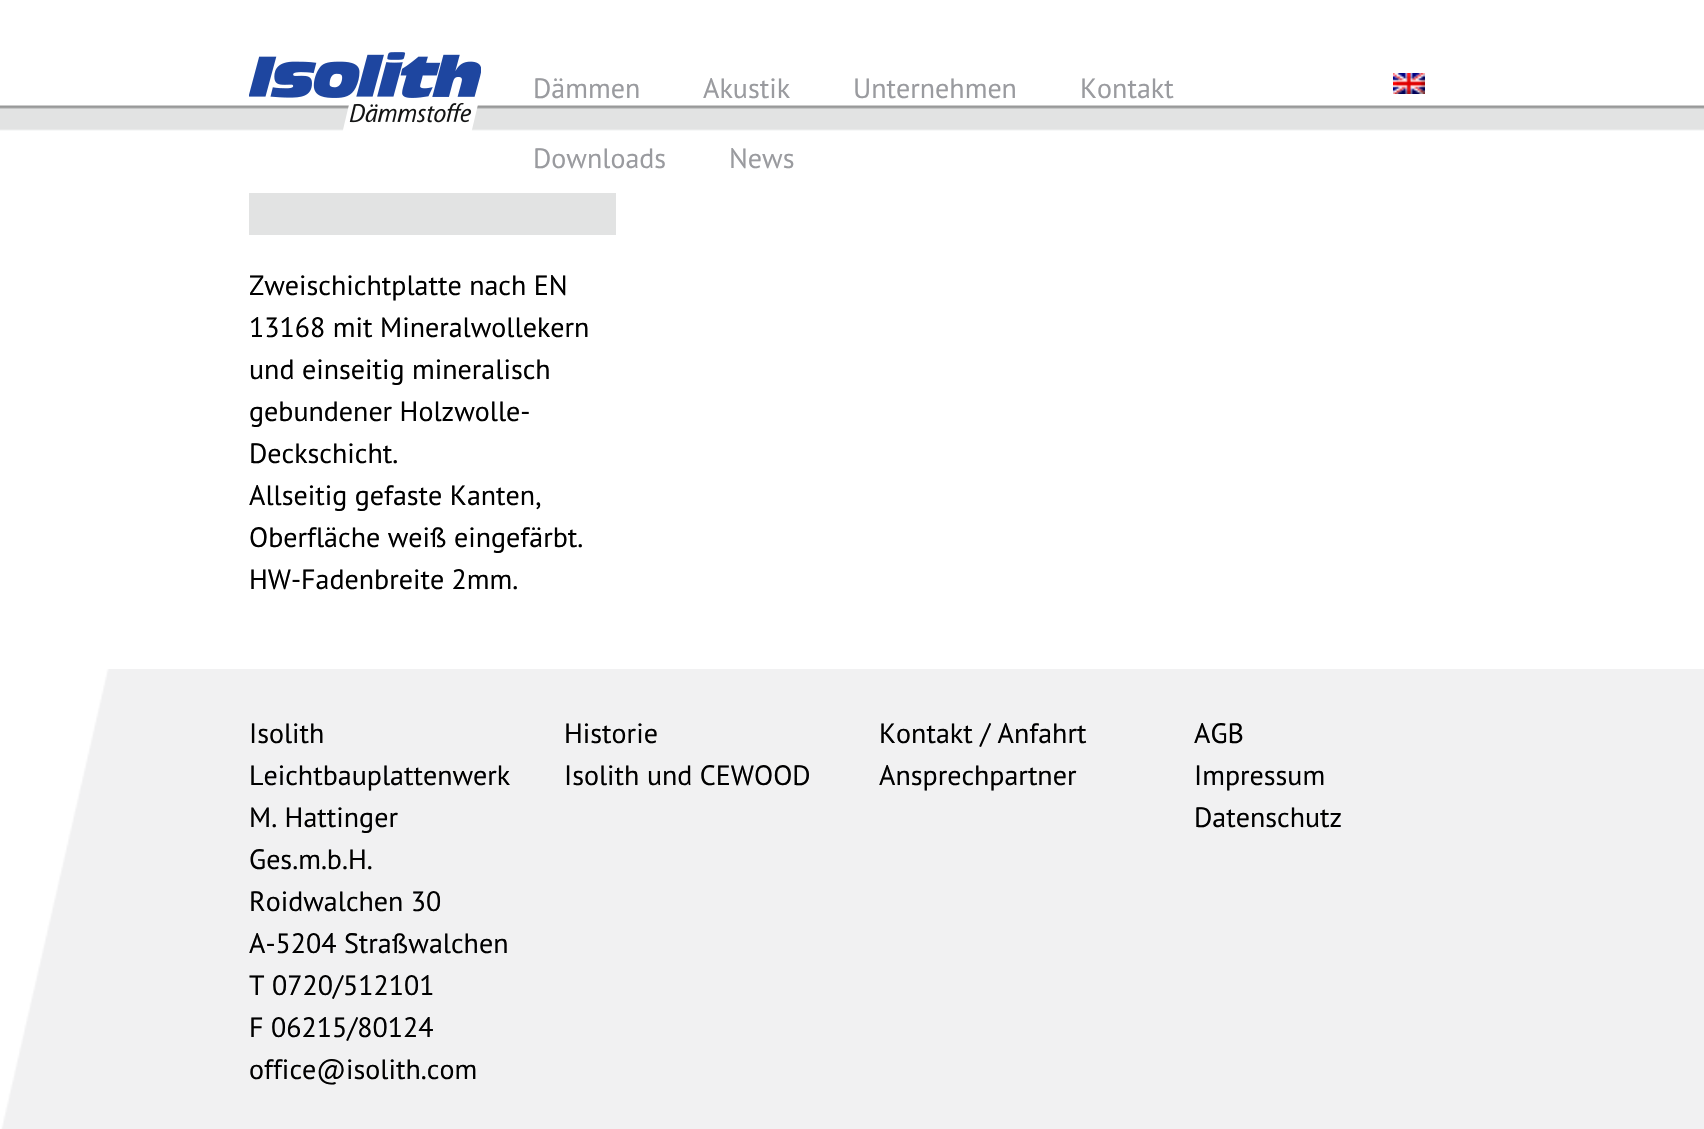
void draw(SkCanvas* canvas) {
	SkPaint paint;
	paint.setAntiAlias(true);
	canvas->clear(0xffffffff);
	canvas->drawImageRect(SkImages::DeferredFromEncodedData(SkData::MakeFromFileName("img1.png")), SkRect::MakeXYWH(0, 105, 1704, 26), SkSamplingOptions());
	canvas->drawImageRect(SkImages::DeferredFromEncodedData(SkData::MakeFromFileName("img2.png")), SkRect::MakeXYWH(249, 52, 232, 79), SkSamplingOptions());
	SkFont f1(fontMgr->matchFamilyStyle("PT Sans", SkFontStyle::Normal()), 28);
	f1.setSubpixel(true);
	paint.setColor(0xff9a9b9f);
	canvas->drawString("Dämmen", 533, 98, f1, paint);
	canvas->drawString("Akustik", 703, 98, f1, paint);
	canvas->drawString("Unternehmen", 853, 98, f1, paint);
	canvas->drawString("Kontakt", 1080, 98, f1, paint);
	canvas->drawString("Downloads", 533, 168, f1, paint);
	canvas->drawString("News", 729, 168, f1, paint);
	canvas->drawImageRect(SkImages::DeferredFromEncodedData(SkData::MakeFromFileName("img3.png")), SkRect::MakeXYWH(1393, 73, 32, 21), SkSamplingOptions());
	paint.setColor(0xffe2e3e3);
	canvas->drawRect(SkRect::MakeXYWH(249, 193, 367, 42), paint);
	paint.setColor(0xff000000);
	canvas->drawString("Zweischichtplatte nach EN", 249, 295, f1, paint);
	canvas->drawString("13168 mit Mineralwollekern", 249, 337, f1, paint);
	canvas->drawString("und einseitig mineralisch", 249, 379, f1, paint);
	canvas->drawString("gebundener Holzwolle-", 249, 421, f1, paint);
	canvas->drawString("Deckschicht.", 249, 463, f1, paint);
	canvas->drawString("Allseitig gefaste Kanten,", 249, 505, f1, paint);
	canvas->drawString("Oberfläche weiß eingefärbt.", 249, 547, f1, paint);
	canvas->drawString("HW-Fadenbreite 2 mm.", 249, 589, f1, paint);
	paint.setColor(0xfff1f1f2);
	canvas->drawRect(SkRect::MakeXYWH(0, 669, 1704, 460), paint);
	canvas->drawImageRect(SkImages::DeferredFromEncodedData(SkData::MakeFromFileName("img4.png")), SkRect::MakeXYWH(0, 669, 109, 460), SkSamplingOptions());
	paint.setColor(0xff000000);
	canvas->drawString("Isolith", 249, 743, f1, paint);
	canvas->drawString("Leichtbauplattenwerk", 249, 785, f1, paint);
	canvas->drawString("M. Hattinger", 249, 827, f1, paint);
	canvas->drawString("Ges.m.b.H.", 249, 869, f1, paint);
	canvas->drawString("Roidwalchen 30", 249, 911, f1, paint);
	canvas->drawString("A-5204 Straßwalchen", 249, 953, f1, paint);
	canvas->drawString("T 0720/512101", 249, 995, f1, paint);
	canvas->drawString("F 06215/80124", 249, 1037, f1, paint);
	canvas->drawString("office@isolith.com", 249, 1079, f1, paint);
	canvas->drawString("Historie", 564, 743, f1, paint);
	canvas->drawString("Isolith und CEWOOD", 564, 785, f1, paint);
	canvas->drawString("Kontakt / Anfahrt", 879, 743, f1, paint);
	canvas->drawString("Ansprechpartner", 879, 785, f1, paint);
	canvas->drawString("AGB", 1194, 743, f1, paint);
	canvas->drawString("Impressum", 1194, 785, f1, paint);
	canvas->drawString("Datenschutz", 1194, 827, f1, paint);
}
